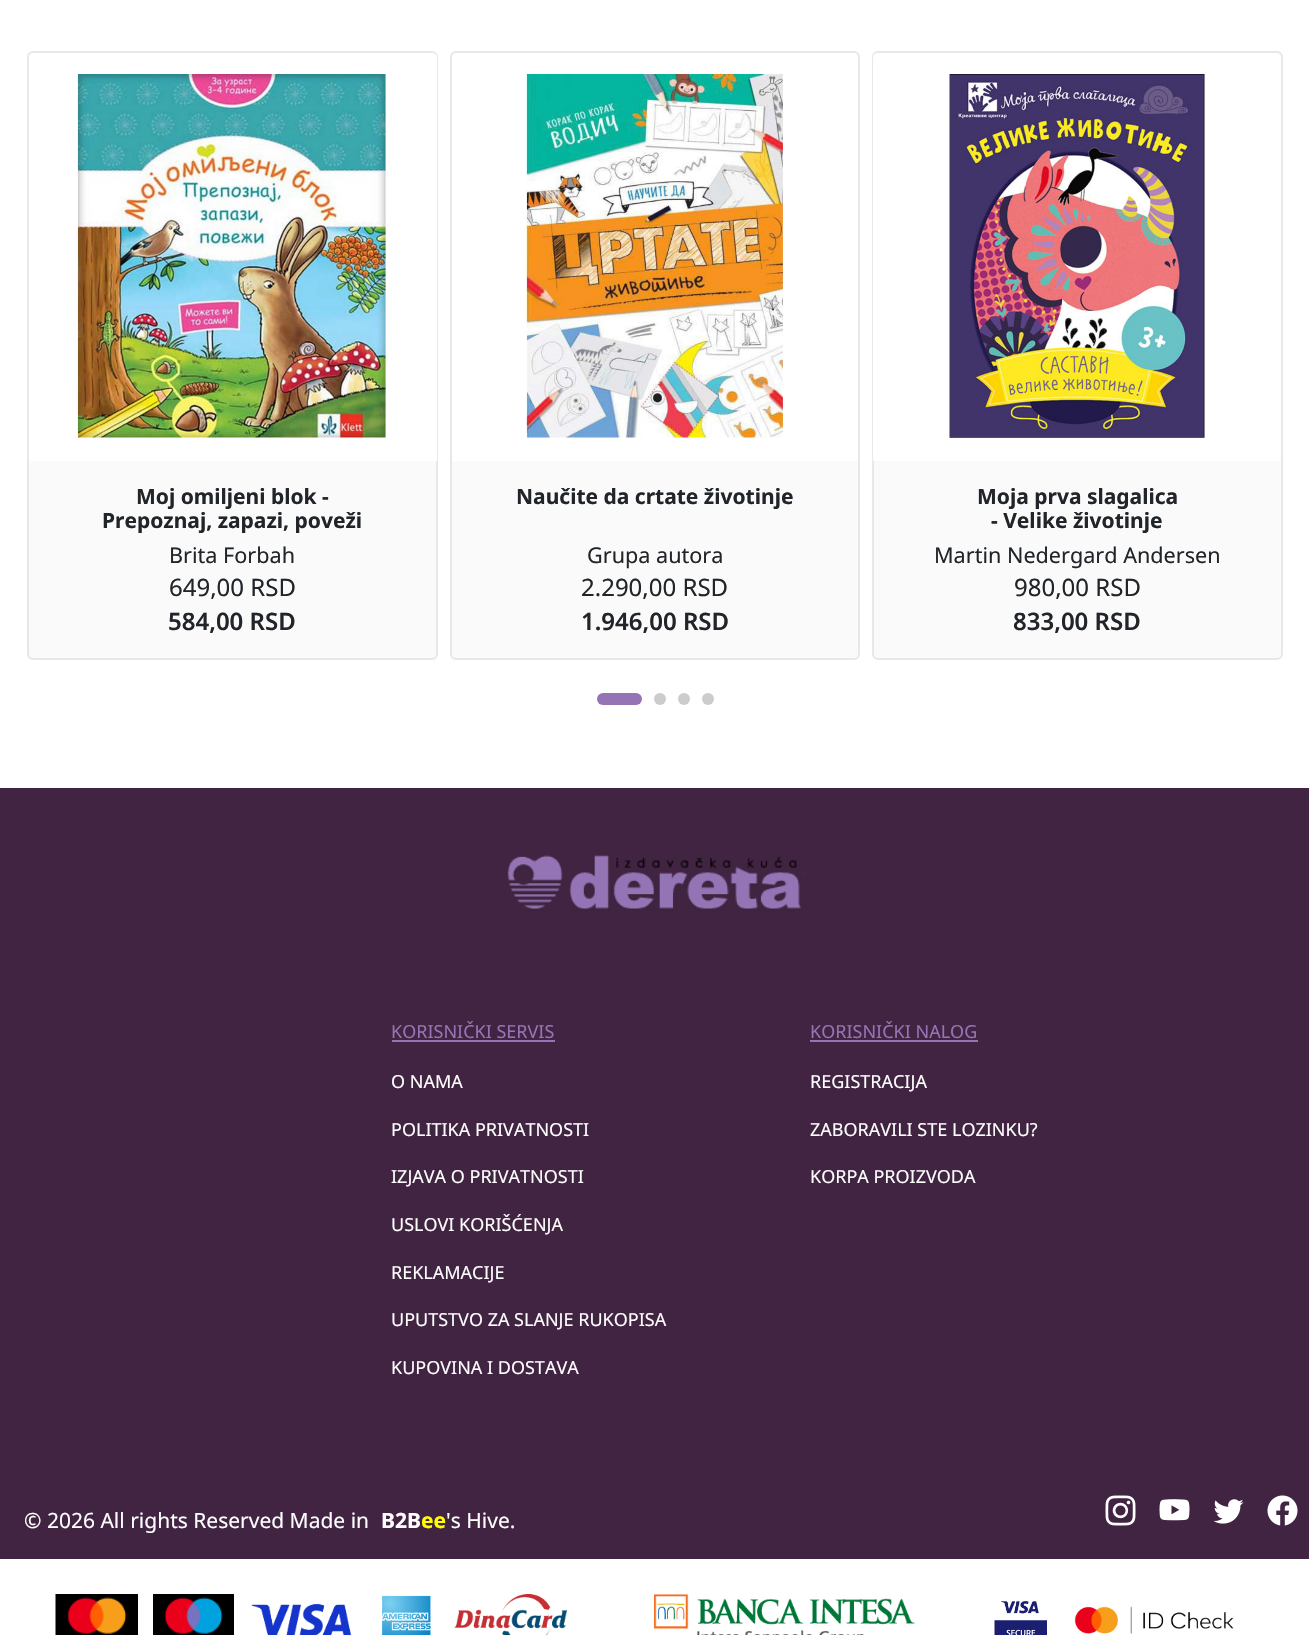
void draw(SkCanvas* canvas) {
	SkPaint paint;
	paint.setAntiAlias(true);
	auto svgPath = [&](const char* data, bool evenOdd = false) {
		SkPath result = *SkParsePath::FromSVGString(data);
		if (evenOdd) result.setFillType(SkPathFillType::kEvenOdd);
		return result;
	};
	canvas->clear(0xffffffff);
	paint.setColor(0xfffafafa);
	canvas->drawRoundRect(SkRect::MakeXYWH(28, 52, 409, 607), 5, 5, paint);
	paint.setStroke(true);
	paint.setStrokeWidth(2);
	paint.setColor(0xffe8e8e8);
	canvas->drawRoundRect(SkRect::MakeXYWH(28, 52, 409, 607), 5, 5, paint);
	paint.setStroke(false);
	paint.setColor(0xffffffff);
	canvas->drawPath(svgPath("M34 53H432C435 53 437 55 437 58V461H29V58C29 55 31 53 34 53Z"), paint);
	canvas->drawImageRect(SkImages::DeferredFromEncodedData(SkData::MakeFromFileName("img1.png")), SkRect::MakeXYWH(77, 74, 309, 364), SkSamplingOptions());
	SkFont f1(fontMgr->matchFamilyStyle("Noto Sans", SkFontStyle::Bold()), 21);
	f1.setSubpixel(true);
	paint.setColor(0xff212529);
	canvas->drawString("Moj omiljeni blok -", 136, 504, f1, paint);
	canvas->drawString("Prepoznaj, zapazi, poveži", 102, 528, f1, paint);
	SkFont f2(fontMgr->matchFamilyStyle("Noto Sans", SkFontStyle::Normal()), 21.6);
	f2.setSubpixel(true);
	canvas->drawString("Brita Forbah", 169, 563, f2, paint);
	SkFont f3(fontMgr->matchFamilyStyle("Noto Sans", SkFontStyle::Normal()), 24);
	f3.setSubpixel(true);
	canvas->drawString("649,00 RSD", 169, 596, f3, paint);
	SkFont f4(fontMgr->matchFamilyStyle("Noto Sans", SkFontStyle(600, SkFontStyle::kNormal_Width, SkFontStyle::kUpright_Slant)), 24);
	f4.setSubpixel(true);
	canvas->drawString("584,00 RSD", 168, 630, f4, paint);
	paint.setColor(0xfffafafa);
	canvas->drawRoundRect(SkRect::MakeXYWH(451, 52, 408, 607), 5, 5, paint);
	paint.setStroke(true);
	paint.setColor(0xffe8e8e8);
	canvas->drawRoundRect(SkRect::MakeXYWH(451, 52, 408, 607), 5, 5, paint);
	paint.setStroke(false);
	paint.setColor(0xffffffff);
	canvas->drawPath(svgPath("M457 53H853C856 53 858 55 858 58V461H452V58C452 55 454 53 457 53Z"), paint);
	canvas->drawImageRect(SkImages::DeferredFromEncodedData(SkData::MakeFromFileName("img2.png")), SkRect::MakeXYWH(526, 74, 257, 364), SkSamplingOptions());
	paint.setColor(0xff212529);
	canvas->drawString("Naučite da crtate životinje", 516, 504, f1, paint);
	canvas->drawString("Grupa autora", 587, 563, f2, paint);
	canvas->drawString("2.290,00 RSD", 581, 596, f3, paint);
	canvas->drawString("1.946,00 RSD", 581, 630, f4, paint);
	paint.setColor(0xfffafafa);
	canvas->drawRoundRect(SkRect::MakeXYWH(873, 52, 409, 607), 5, 5, paint);
	paint.setStroke(true);
	paint.setColor(0xffe8e8e8);
	canvas->drawRoundRect(SkRect::MakeXYWH(873, 52, 409, 607), 5, 5, paint);
	paint.setStroke(false);
	paint.setColor(0xffffffff);
	canvas->drawPath(svgPath("M878 53H1276C1279 53 1281 55 1281 58V461H873V58C873 55 875 53 878 53Z"), paint);
	canvas->drawImageRect(SkImages::DeferredFromEncodedData(SkData::MakeFromFileName("img3.png")), SkRect::MakeXYWH(949, 74, 256, 364), SkSamplingOptions());
	paint.setColor(0xff212529);
	canvas->drawString("Moja prva slagalica", 977, 504, f1, paint);
	canvas->drawString("- Velike životinje", 991, 528, f1, paint);
	canvas->drawString("Martin Nedergard Andersen", 934, 563, f2, paint);
	canvas->drawString("980,00 RSD", 1014, 596, f3, paint);
	canvas->drawString("833,00 RSD", 1013, 630, f4, paint);
	paint.setColor(0xff9474b4);
	canvas->drawRoundRect(SkRect::MakeXYWH(597, 693, 45, 12), 6, 6, paint);
	paint.setColor(0xffcccccc);
	canvas->drawCircle(660, 699, 6, paint);
	canvas->drawCircle(684, 699, 6, paint);
	canvas->drawCircle(708, 699, 6, paint);
	paint.setColor(0xff412342);
	canvas->drawRect(SkRect::MakeXYWH(0, 788, 1309, 771), paint);
	canvas->drawImageRect(SkImages::DeferredFromEncodedData(SkData::MakeFromFileName("img4.png")), SkRect::MakeXYWH(507, 855, 298, 56), SkSamplingOptions());
	SkFont f5(fontMgr->matchFamilyStyle("Noto Sans", SkFontStyle::Normal()), 18);
	f5.setSubpixel(true);
	paint.setColor(0xff9474b4);
	canvas->drawString("KORISNIČKI SERVIS", 391, 1038, f5, paint);
	canvas->drawRect(SkRect::MakeXYWH(392, 1040, 163, 2), paint);
	paint.setColor(0xffffffff);
	canvas->drawString("O NAMA", 391, 1088, f5, paint);
	canvas->drawString("POLITIKA PRIVATNOSTI", 391, 1136, f5, paint);
	canvas->drawString("IZJAVA O PRIVATNOSTI", 391, 1183, f5, paint);
	canvas->drawString("USLOVI KORIŠĆENJA", 391, 1231, f5, paint);
	canvas->drawString("REKLAMACIJE", 391, 1279, f5, paint);
	canvas->drawString("UPUTSTVO ZA SLANJE RUKOPISA", 391, 1326, f5, paint);
	canvas->drawString("KUPOVINA I DOSTAVA", 391, 1374, f5, paint);
	paint.setColor(0xff9474b4);
	canvas->drawString("KORISNIČKI NALOG", 810, 1038, f5, paint);
	canvas->drawRect(SkRect::MakeXYWH(810, 1040, 168, 2), paint);
	paint.setColor(0xffffffff);
	canvas->drawString("REGISTRACIJA", 810, 1088, f5, paint);
	canvas->drawString("ZABORAVILI STE LOZINKU?", 810, 1136, f5, paint);
	canvas->drawString("KORPA PROIZVODA", 810, 1183, f5, paint);
	SkFont f6(fontMgr->matchFamilyStyle("Noto Sans", SkFontStyle::Normal()), 21);
	f6.setSubpixel(true);
	canvas->drawString("© 2026 All rights Reserved Made in", 24, 1528, f6, paint);
	canvas->drawString("B2B", 381, 1528, f1, paint);
	paint.setColor(0xffffff00);
	canvas->drawString("ee", 421, 1528, f1, paint);
	paint.setColor(0xffffffff);
	canvas->drawString("'s Hive.", 446, 1528, f6, paint);
	canvas->drawImageRect(SkImages::DeferredFromEncodedData(SkData::MakeFromFileName("img5.png")), SkRect::MakeXYWH(1105, 1495, 31, 31), SkSamplingOptions());
	canvas->drawImageRect(SkImages::DeferredFromEncodedData(SkData::MakeFromFileName("img6.png")), SkRect::MakeXYWH(1159, 1499, 31, 22), SkSamplingOptions());
	canvas->drawImageRect(SkImages::DeferredFromEncodedData(SkData::MakeFromFileName("img7.png")), SkRect::MakeXYWH(1213, 1499, 31, 25), SkSamplingOptions());
	canvas->drawImageRect(SkImages::DeferredFromEncodedData(SkData::MakeFromFileName("img8.png")), SkRect::MakeXYWH(1267, 1495, 31, 31), SkSamplingOptions());
	canvas->drawImageRect(SkImages::DeferredFromEncodedData(SkData::MakeFromFileName("img9.png")), SkRect::MakeXYWH(55, 1594, 83, 41), SkSamplingOptions());
	canvas->drawImageRect(SkImages::DeferredFromEncodedData(SkData::MakeFromFileName("img10.png")), SkRect::MakeXYWH(153, 1594, 81, 41), SkSamplingOptions());
	canvas->drawImageRect(SkImages::DeferredFromEncodedData(SkData::MakeFromFileName("img11.png")), SkRect::MakeXYWH(251, 1603, 101, 32), SkSamplingOptions());
	canvas->drawImageRect(SkImages::DeferredFromEncodedData(SkData::MakeFromFileName("img12.png")), SkRect::MakeXYWH(382, 1595, 49, 40), SkSamplingOptions());
	canvas->drawImageRect(SkImages::DeferredFromEncodedData(SkData::MakeFromFileName("img13.png")), SkRect::MakeXYWH(454, 1594, 113, 41), SkSamplingOptions());
	canvas->drawImageRect(SkImages::DeferredFromEncodedData(SkData::MakeFromFileName("img14.png")), SkRect::MakeXYWH(654, 1594, 261, 41), SkSamplingOptions());
	canvas->drawImageRect(SkImages::DeferredFromEncodedData(SkData::MakeFromFileName("img15.png")), SkRect::MakeXYWH(994, 1601, 53, 34), SkSamplingOptions());
	canvas->drawImageRect(SkImages::DeferredFromEncodedData(SkData::MakeFromFileName("img16.png")), SkRect::MakeXYWH(1074, 1606, 160, 28), SkSamplingOptions());
}
